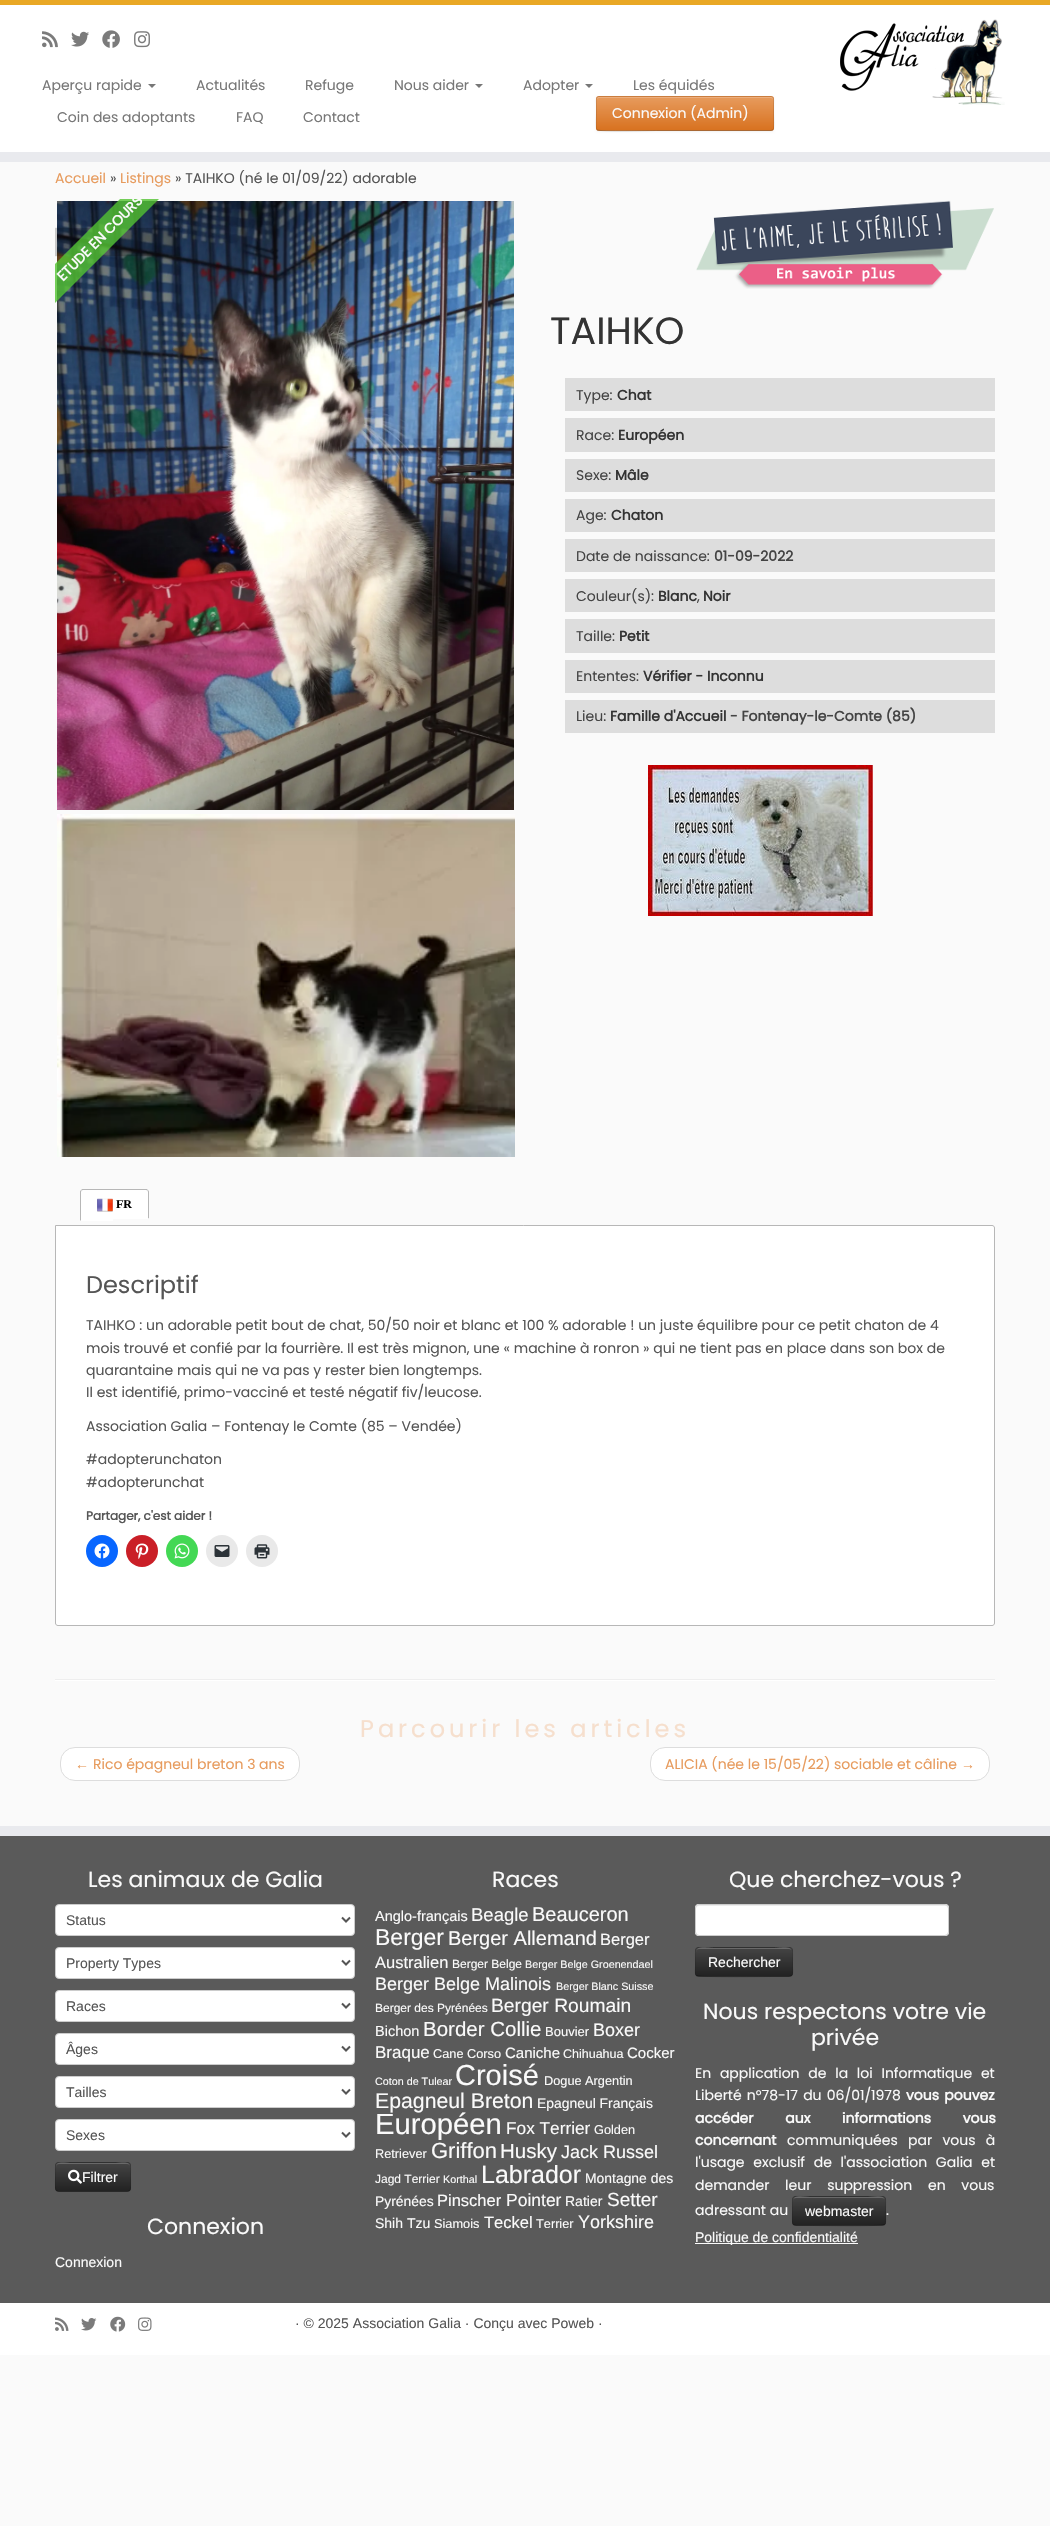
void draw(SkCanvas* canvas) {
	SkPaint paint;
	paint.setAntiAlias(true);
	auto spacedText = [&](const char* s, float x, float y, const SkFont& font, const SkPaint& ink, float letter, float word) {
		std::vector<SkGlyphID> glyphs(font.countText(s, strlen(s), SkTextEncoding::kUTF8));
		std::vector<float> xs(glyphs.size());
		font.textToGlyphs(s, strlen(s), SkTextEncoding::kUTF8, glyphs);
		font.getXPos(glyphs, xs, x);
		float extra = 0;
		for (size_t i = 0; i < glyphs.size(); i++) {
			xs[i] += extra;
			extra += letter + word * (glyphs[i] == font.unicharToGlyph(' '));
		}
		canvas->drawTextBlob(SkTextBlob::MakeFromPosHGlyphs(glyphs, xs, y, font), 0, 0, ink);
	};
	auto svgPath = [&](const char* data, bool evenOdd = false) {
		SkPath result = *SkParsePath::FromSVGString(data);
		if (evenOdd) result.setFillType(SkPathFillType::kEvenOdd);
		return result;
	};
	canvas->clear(0xfffafafa);
	paint.setColor(0xffffffff);
	canvas->drawRect(SkRect::MakeXYWH(0, 5, 1050, 147), paint);
	paint.setColor(0xffe9a825);
	canvas->drawRect(SkRect::MakeXYWH(0, 0, 1050, 5), paint);
	paint.setColor(0xffe9eaee);
	canvas->drawRect(SkRect::MakeXYWH(0, 152, 1050, 10), paint);
	canvas->drawImageRect(SkImages::DeferredFromEncodedData(SkData::MakeFromFileName("img1.png")), SkRect::MakeXYWH(42, 31, 16, 17), SkSamplingOptions());
	canvas->drawImageRect(SkImages::DeferredFromEncodedData(SkData::MakeFromFileName("img2.png")), SkRect::MakeXYWH(71, 31, 18, 16), SkSamplingOptions());
	canvas->drawImageRect(SkImages::DeferredFromEncodedData(SkData::MakeFromFileName("img3.png")), SkRect::MakeXYWH(102, 30, 18, 18), SkSamplingOptions());
	canvas->drawImageRect(SkImages::DeferredFromEncodedData(SkData::MakeFromFileName("img4.png")), SkRect::MakeXYWH(134, 31, 16, 17), SkSamplingOptions());
	SkFont f1(fontMgr->matchFamilyStyle("Poppins", SkFontStyle::Normal()), 14);
	f1.setSubpixel(true);
	paint.setColor(0xff777777);
	canvas->drawString("Aperçu rapide", 42, 90, f1, paint);
	canvas->drawPath(svgPath("M148 84H156L152 88Z"), paint);
	canvas->drawString("Actualités", 196, 90, f1, paint);
	canvas->drawString("Refuge", 305, 90, f1, paint);
	canvas->drawString("Nous aider", 394, 90, f1, paint);
	canvas->drawPath(svgPath("M475 84H483L479 88Z"), paint);
	canvas->drawString("Adopter", 523, 90, f1, paint);
	canvas->drawPath(svgPath("M585 84H593L589 88Z"), paint);
	canvas->drawString("Les équidés", 633, 90, f1, paint);
	canvas->drawString("Coin des adoptants", 57, 122, f1, paint);
	canvas->drawString("FAQ", 236, 122, f1, paint);
	canvas->drawString("Contact", 303, 122, f1, paint);
	paint.setColor(0x0d000000);
	paint.setMaskFilter(SkMaskFilter::MakeBlur(kNormal_SkBlurStyle, 1));
	canvas->drawRoundRect(SkRect::MakeXYWH(596, 97, 178, 35), 3, 3, paint);
	paint.setMaskFilter(nullptr);
	paint.setColor(0xffe18b45);
	canvas->drawRoundRect(SkRect::MakeXYWH(596, 96, 178, 35), 3, 3, paint);
	canvas->save();
	canvas->clipPath(svgPath("M599 96H771C772.5 96 774 97.5 774 99V128C774 129.5 772.5 131 771 131H599C597.5 131 596 129.5 596 128V99C596 97.5 597.5 96 599 96Z"), true);
	{
		const SkColor colors[] = {0xffe79b5d, 0xffd87220};
		const float stops[] = {0, 1};
		const SkPoint ends[] = {{685, 97}, {685, 130}};
		paint.setShader(SkGradientShader::MakeLinear(ends, colors, stops, 2, SkTileMode::kClamp));
		paint.setAlpha(255);
	}
	canvas->drawRect(SkRect::MakeXYWH(596, 97, 178, 33), paint);
	canvas->restore();
	paint.setShader(nullptr);
	paint.setColor(0xffecae7d);
	canvas->drawPath(svgPath("M599 98H771C772 98 773 99 773 100C773 99 773 97 771 97H598C597 98 597 99 597 100C597 99 598 98 599 98Z"), paint);
	paint.setStroke(true);
	paint.setStrokeWidth(1);
	paint.setColor(0x40000000);
	canvas->drawPath(svgPath("M773 130L771 130.5H656.5C652.5 130.5 599 131.5 597 130"), paint);
	paint.setColor(0x1a000000);
	canvas->drawPath(svgPath("M597 130C595.5 128 596.5 116.5 596.5 113.5V104C596.5 102 595.5 96.5 599 96.5H771C774.5 96.5 773.5 102 773.5 104V113.5C773.5 116.5 774.5 128 773 130"), paint);
	paint.setStroke(false);
	paint.setColor(0xfffafafa);
	canvas->drawString("Connexion (Admin)", 612, 118, f1, paint);
	canvas->drawImageRect(SkImages::DeferredFromEncodedData(SkData::MakeFromFileName("img5.png")), SkRect::MakeXYWH(840, 19, 165, 86), SkSamplingOptions());
	paint.setColor(0xffe79b5d);
	canvas->drawString("Accueil", 55, 183, f1, paint);
	paint.setColor(0xff555555);
	canvas->drawString("»", 110, 183, f1, paint);
	paint.setColor(0xffe79b5d);
	canvas->drawString("Listings", 120, 183, f1, paint);
	paint.setColor(0xff555555);
	canvas->drawString("» TAIHKO (né le 01/09/22) adorable", 175, 183, f1, paint);
	canvas->drawImageRect(SkImages::DeferredFromEncodedData(SkData::MakeFromFileName("img6.png")), SkRect::MakeXYWH(57, 201, 457, 609), SkSamplingOptions());
	canvas->save();
	canvas->clipRect(SkRect::MakeXYWH(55, 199, 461, 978));
	canvas->clipPath(svgPath("M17 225H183V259H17ZM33.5 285L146.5 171.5L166.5 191.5L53.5 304.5Z", true), true);
	paint.setColor(0x33000000);
	paint.setMaskFilter(SkMaskFilter::MakeBlur(kNormal_SkBlurStyle, 0.5));
	canvas->drawRect(SkRect::MakeXYWH(20, 228, 160, 28), paint);
	paint.setMaskFilter(nullptr);
	canvas->restore();
	canvas->save();
	canvas->clipRect(SkRect::MakeXYWH(55, 199, 461, 978));
	paint.setColor(0xcc53c331);
	canvas->drawPath(svgPath("M34 285L147 172L166 192L53 305Z"), paint);
	SkFont f2(fontMgr->matchFamilyStyle("Poppins", SkFontStyle::Bold()), 14);
	f2.setSubpixel(true);
	paint.setColor(0xfffafafa);
	canvas->save();
	canvas->rotate(-45, 63, 282);
	canvas->drawString("ETUDE EN COURS", 63, 282, f2, paint);
	canvas->restore();
	canvas->restore();
	canvas->drawImageRect(SkImages::DeferredFromEncodedData(SkData::MakeFromFileName("img7.png")), SkRect::MakeXYWH(57, 814, 458, 343), SkSamplingOptions());
	canvas->drawImageRect(SkImages::DeferredFromEncodedData(SkData::MakeFromFileName("img8.png")), SkRect::MakeXYWH(696, 200, 298, 89), SkSamplingOptions());
	SkFont f3(fontMgr->matchFamilyStyle("Poppins", SkFontStyle::Normal()), 38);
	f3.setSubpixel(true);
	paint.setColor(0xff333333);
	canvas->drawString("TAIHKO", 550, 344, f3, paint);
	paint.setColor(0xffdddddd);
	canvas->drawRect(SkRect::MakeXYWH(565, 378, 430, 33), paint);
	paint.setColor(0xff444444);
	canvas->drawString("Type:", 576, 400, f1, paint);
	paint.setColor(0xff333333);
	canvas->drawString("Chat", 617, 400, f2, paint);
	paint.setColor(0xffdddddd);
	canvas->drawRect(SkRect::MakeXYWH(565, 418, 430, 34), paint);
	paint.setColor(0xff444444);
	canvas->drawString("Race:", 576, 440, f1, paint);
	paint.setColor(0xff333333);
	canvas->drawString("Européen", 618, 440, f2, paint);
	paint.setColor(0xffdddddd);
	canvas->drawRect(SkRect::MakeXYWH(565, 459, 430, 33), paint);
	paint.setColor(0xff444444);
	canvas->drawString("Sexe:", 576, 480, f1, paint);
	paint.setColor(0xff333333);
	canvas->drawString("Mâle", 615, 480, f2, paint);
	paint.setColor(0xffdddddd);
	canvas->drawRect(SkRect::MakeXYWH(565, 499, 430, 33), paint);
	paint.setColor(0xff444444);
	canvas->drawString("Age:", 576, 520, f1, paint);
	paint.setColor(0xff333333);
	canvas->drawString("Chaton", 611, 520, f2, paint);
	paint.setColor(0xffdddddd);
	canvas->drawRect(SkRect::MakeXYWH(565, 539, 430, 33), paint);
	paint.setColor(0xff444444);
	canvas->drawString("Date de naissance:", 576, 561, f1, paint);
	canvas->drawString("01-09-2022", 714, 561, f2, paint);
	paint.setColor(0xffdddddd);
	canvas->drawRect(SkRect::MakeXYWH(565, 579, 430, 33), paint);
	paint.setColor(0xff444444);
	canvas->drawString("Couleur(s):", 576, 601, f1, paint);
	paint.setColor(0xff333333);
	canvas->drawString("Blanc", 658, 601, f2, paint);
	paint.setColor(0xff444444);
	canvas->drawString(",", 697, 601, f1, paint);
	paint.setColor(0xff333333);
	canvas->drawString("Noir", 703, 601, f2, paint);
	paint.setColor(0xffdddddd);
	canvas->drawRect(SkRect::MakeXYWH(565, 619, 430, 34), paint);
	paint.setColor(0xff444444);
	canvas->drawString("Taille:", 576, 641, f1, paint);
	paint.setColor(0xff333333);
	canvas->drawString("Petit", 619, 641, f2, paint);
	paint.setColor(0xffdddddd);
	canvas->drawRect(SkRect::MakeXYWH(565, 660, 430, 33), paint);
	paint.setColor(0xff444444);
	canvas->drawString("Ententes:", 576, 681, f1, paint);
	paint.setColor(0xff333333);
	canvas->drawString("Vérifier - Inconnu", 643, 681, f2, paint);
	paint.setColor(0xffdddddd);
	canvas->drawRect(SkRect::MakeXYWH(565, 700, 430, 33), paint);
	paint.setColor(0xff444444);
	canvas->drawString("Lieu:", 576, 721, f1, paint);
	paint.setColor(0xff333333);
	canvas->drawString("Famille d'Accueil", 610, 721, f2, paint);
	paint.setColor(0xff444444);
	canvas->drawString("- Fontenay-le-Comte (85)", 730, 721, f2, paint);
	canvas->drawImageRect(SkImages::DeferredFromEncodedData(SkData::MakeFromFileName("img9.png")), SkRect::MakeXYWH(648, 765, 225, 151), SkSamplingOptions());
	paint.setColor(0xffffffff);
	canvas->drawPath(svgPath("M83 1189H113V1221H80V1192C80 1190.5 81.5 1189 83 1189Z"), paint);
	canvas->drawImageRect(SkImages::DeferredFromEncodedData(SkData::MakeFromFileName("img10.png")), SkRect::MakeXYWH(97, 1198, 16, 14), SkSamplingOptions());
	canvas->drawPath(svgPath("M113 1189H146C147.5 1189 149 1190.5 149 1192V1219H113Z"), paint);
	SkFont f4(fontMgr->matchFamilyStyle("Liberation Serif", SkFontStyle::Bold()), 12);
	f4.setSubpixel(true);
	paint.setColor(0xff000000);
	canvas->drawString("FR", 116, 1208, f4, paint);
	paint.setColor(0xffb7b7b7);
	canvas->drawPath(svgPath("M83 1189C82 1189 81.5 1189.5 81 1190L81.5 1190.5L83 1190H113V1189Z"), paint);
	canvas->drawPath(svgPath("M80 1221L81 1220V1192L81.5 1190.5L81 1190C80.5 1190.5 80 1191 80 1192Z"), paint);
	canvas->drawPath(svgPath("M113 1189V1190H146L147.5 1190.5L148 1190C147.5 1189.5 147 1189 146 1189Z"), paint);
	canvas->drawPath(svgPath("M148 1218V1192L147.5 1190.5L148 1190C148.5 1190.5 149 1191 149 1192V1219Z"), paint);
	paint.setColor(0xffffffff);
	canvas->drawPath(svgPath("M149 1219L148 1218H113V1219Z"), paint);
	canvas->drawPath(svgPath("M55.5 1225.5H992C993.5 1225.5 994.5 1226.5 994.5 1228V1623C994.5 1624.5 993.5 1625.5 992 1625.5H58C56.5 1625.5 55.5 1624.5 55.5 1623Z"), paint);
	paint.setStroke(true);
	paint.setColor(0xffb7b7b7);
	canvas->drawPath(svgPath("M55.5 1225.5H992C993.5 1225.5 994.5 1226.5 994.5 1228V1623C994.5 1624.5 993.5 1625.5 992 1625.5H58C56.5 1625.5 55.5 1624.5 55.5 1623Z"), paint);
	SkFont f5(fontMgr->matchFamilyStyle("Poppins", SkFontStyle::Normal()), 24);
	f5.setSubpixel(true);
	paint.setStroke(false);
	paint.setColor(0xff555555);
	canvas->drawString("Descriptif", 86, 1293, f5, paint);
	canvas->drawString("TAIHKO : un adorable petit bout de chat, 50/50 noir et blanc et 100 % adorable ! un juste équilibre pour ce petit chaton de 4", 86, 1330, f1, paint);
	canvas->drawString("mois trouvé et confié par la fourrière. Il est très mignon, une « machine à ronron » qui ne tient pas en place dans son box de", 86, 1353, f1, paint);
	canvas->drawString("quarantaine mais qui ne va pas y rester bien longtemps.", 86, 1375, f1, paint);
	canvas->drawString("Il est identifié, primo-vacciné et testé négatif fiv/leucose.", 86, 1397, f1, paint);
	canvas->drawString("Association Galia – Fontenay le Comte (85 – Vendée)", 86, 1431, f1, paint);
	canvas->drawString("#adopterunchaton", 86, 1464, f1, paint);
	canvas->drawString("#adopterunchat", 86, 1487, f1, paint);
	SkFont f6(fontMgr->matchFamilyStyle("Poppins", SkFontStyle::Bold()), 12);
	f6.setSubpixel(true);
	canvas->drawString("Partager, c'est aider !", 86, 1520, f6, paint);
	paint.setColor(0xff0866ff);
	canvas->drawCircle(102, 1551, 16, paint);
	canvas->drawImageRect(SkImages::DeferredFromEncodedData(SkData::MakeFromFileName("img11.png")), SkRect::MakeXYWH(94, 1543, 16, 16), SkSamplingOptions());
	paint.setColor(0xffca1f27);
	canvas->drawCircle(142, 1551, 16, paint);
	canvas->drawImageRect(SkImages::DeferredFromEncodedData(SkData::MakeFromFileName("img12.png")), SkRect::MakeXYWH(135, 1543, 14, 16), SkSamplingOptions());
	paint.setColor(0xff43d854);
	canvas->drawCircle(182, 1551, 16, paint);
	canvas->drawImageRect(SkImages::DeferredFromEncodedData(SkData::MakeFromFileName("img13.png")), SkRect::MakeXYWH(174, 1543, 16, 16), SkSamplingOptions());
	paint.setColor(0xffe9e9e9);
	canvas->drawCircle(222, 1551, 16, paint);
	canvas->drawImageRect(SkImages::DeferredFromEncodedData(SkData::MakeFromFileName("img14.png")), SkRect::MakeXYWH(214, 1545, 16, 12), SkSamplingOptions());
	canvas->drawCircle(262, 1551, 16, paint);
	canvas->drawImageRect(SkImages::DeferredFromEncodedData(SkData::MakeFromFileName("img15.png")), SkRect::MakeXYWH(254, 1544, 16, 15), SkSamplingOptions());
	paint.setColor(0xffeeeeee);
	canvas->drawRect(SkRect::MakeXYWH(55, 1679, 940, 1), paint);
	paint.setColor(0xffffffff);
	canvas->drawRect(SkRect::MakeXYWH(55, 1680, 940, 1), paint);
	paint.setColor(0xfff6dfcd);
	spacedText("Parcourir les articles", 360, 1737, f5, paint, 4, 0);
	paint.setColor(0xffffffff);
	canvas->drawRoundRect(SkRect::MakeXYWH(60.5, 1747.5, 239, 33), 14.5, 14.5, paint);
	paint.setStroke(true);
	paint.setColor(0xffdddddd);
	canvas->drawRoundRect(SkRect::MakeXYWH(60.5, 1747.5, 239, 33), 14.5, 14.5, paint);
	SkFont f7(fontMgr->matchFamilyStyle("Liberation Serif", SkFontStyle::Normal()), 14);
	f7.setSubpixel(true);
	paint.setStroke(false);
	paint.setColor(0xffe79b5d);
	canvas->drawString("←", 75, 1769, f7, paint);
	canvas->drawString("Rico épagneul breton 3 ans", 93, 1769, f1, paint);
	paint.setColor(0xffffffff);
	canvas->drawRoundRect(SkRect::MakeXYWH(650.5, 1747.5, 339, 33), 14.5, 14.5, paint);
	paint.setStroke(true);
	paint.setColor(0xffdddddd);
	canvas->drawRoundRect(SkRect::MakeXYWH(650.5, 1747.5, 339, 33), 14.5, 14.5, paint);
	paint.setStroke(false);
	paint.setColor(0xffe79b5d);
	canvas->drawString("ALICIA (née le 15/05/22) sociable et câline", 665, 1769, f1, paint);
	canvas->drawString("→", 961, 1769, f7, paint);
	paint.setColor(0xff5a5a5a);
	canvas->drawRect(SkRect::MakeXYWH(0, 1836, 1050, 467), paint);
	paint.setColor(0xffe9eaee);
	canvas->drawRect(SkRect::MakeXYWH(0, 1826, 1050, 10), paint);
	SkFont f8(fontMgr->matchFamilyStyle("Poppins", SkFontStyle::Normal()), 22);
	f8.setSubpixel(true);
	paint.setColor(0xfffafafa);
	canvas->drawString("Les animaux de Galia", 88, 1887, f8, paint);
	paint.setColor(0xffffffff);
	canvas->drawRoundRect(SkRect::MakeXYWH(55.5, 1904.5, 299, 31), 3.5, 3.5, paint);
	paint.setStroke(true);
	paint.setColor(0xffcccccc);
	canvas->drawRoundRect(SkRect::MakeXYWH(55.5, 1904.5, 299, 31), 3.5, 3.5, paint);
	paint.setStrokeWidth(2);
	paint.setColor(0xff555555);
	canvas->drawPath(svgPath("M342 1917.5L346 1921.5L350 1917.5"), paint);
	SkFont f9(fontMgr->matchFamilyStyle("Liberation Sans", SkFontStyle::Normal()), 14);
	f9.setSubpixel(true);
	paint.setStroke(false);
	canvas->drawString("Status", 66, 1925, f9, paint);
	paint.setColor(0xffffffff);
	canvas->drawRoundRect(SkRect::MakeXYWH(55.5, 1947.5, 299, 31), 3.5, 3.5, paint);
	paint.setStroke(true);
	paint.setStrokeWidth(1);
	paint.setColor(0xffcccccc);
	canvas->drawRoundRect(SkRect::MakeXYWH(55.5, 1947.5, 299, 31), 3.5, 3.5, paint);
	paint.setStrokeWidth(2);
	paint.setColor(0xff555555);
	canvas->drawPath(svgPath("M342 1960.5L346 1964.5L350 1960.5"), paint);
	paint.setStroke(false);
	canvas->drawString("Property Types", 66, 1968, f9, paint);
	paint.setColor(0xffffffff);
	canvas->drawRoundRect(SkRect::MakeXYWH(55.5, 1990.5, 299, 31), 3.5, 3.5, paint);
	paint.setStroke(true);
	paint.setStrokeWidth(1);
	paint.setColor(0xffcccccc);
	canvas->drawRoundRect(SkRect::MakeXYWH(55.5, 1990.5, 299, 31), 3.5, 3.5, paint);
	paint.setStrokeWidth(2);
	paint.setColor(0xff555555);
	canvas->drawPath(svgPath("M342 2003.5L346 2007.5L350 2003.5"), paint);
	paint.setStroke(false);
	canvas->drawString("Races", 66, 2011, f9, paint);
	paint.setColor(0xffffffff);
	canvas->drawRoundRect(SkRect::MakeXYWH(55.5, 2033.5, 299, 31), 3.5, 3.5, paint);
	paint.setStroke(true);
	paint.setStrokeWidth(1);
	paint.setColor(0xffcccccc);
	canvas->drawRoundRect(SkRect::MakeXYWH(55.5, 2033.5, 299, 31), 3.5, 3.5, paint);
	paint.setStrokeWidth(2);
	paint.setColor(0xff555555);
	canvas->drawPath(svgPath("M342 2046.5L346 2050.5L350 2046.5"), paint);
	paint.setStroke(false);
	canvas->drawString("Âges", 66, 2054, f9, paint);
	paint.setColor(0xffffffff);
	canvas->drawRoundRect(SkRect::MakeXYWH(55.5, 2076.5, 299, 31), 3.5, 3.5, paint);
	paint.setStroke(true);
	paint.setStrokeWidth(1);
	paint.setColor(0xffcccccc);
	canvas->drawRoundRect(SkRect::MakeXYWH(55.5, 2076.5, 299, 31), 3.5, 3.5, paint);
	paint.setStrokeWidth(2);
	paint.setColor(0xff555555);
	canvas->drawPath(svgPath("M342 2089.5L346 2093.5L350 2089.5"), paint);
	paint.setStroke(false);
	canvas->drawString("Tailles", 66, 2097, f9, paint);
	paint.setColor(0xffffffff);
	canvas->drawRoundRect(SkRect::MakeXYWH(55.5, 2119.5, 299, 31), 3.5, 3.5, paint);
	paint.setStroke(true);
	paint.setStrokeWidth(1);
	paint.setColor(0xffcccccc);
	canvas->drawRoundRect(SkRect::MakeXYWH(55.5, 2119.5, 299, 31), 3.5, 3.5, paint);
	paint.setStrokeWidth(2);
	paint.setColor(0xff555555);
	canvas->drawPath(svgPath("M342 2132.5L346 2136.5L350 2132.5"), paint);
	paint.setStroke(false);
	canvas->drawString("Sexes", 66, 2140, f9, paint);
	paint.setColor(0xff363636);
	canvas->drawRoundRect(SkRect::MakeXYWH(55, 2162, 76, 30), 4, 4, paint);
	canvas->save();
	canvas->clipPath(svgPath("M59 2162H127C129 2162 131 2164 131 2166V2188C131 2190 129 2192 127 2192H59C57 2192 55 2190 55 2188V2166C55 2164 57 2162 59 2162Z"), true);
	{
		const SkColor colors[] = {0xff444444, 0xff222222};
		const float stops[] = {0, 1};
		const SkPoint ends[] = {{93, 2163}, {93, 2191}};
		paint.setShader(SkGradientShader::MakeLinear(ends, colors, stops, 2, SkTileMode::kClamp));
		paint.setAlpha(255);
	}
	canvas->drawRect(SkRect::MakeXYWH(55, 2163, 76, 28), paint);
	canvas->restore();
	paint.setShader(nullptr);
	paint.setColor(0x33ffffff);
	canvas->drawPath(svgPath("M59 2164H127C129 2164 130 2165 130 2167C130 2160 120 2163 116 2163H70C66 2163 56 2160 56 2167C56 2165 57 2164 59 2164Z"), paint);
	paint.setStroke(true);
	paint.setStrokeWidth(1);
	paint.setColor(0x40000000);
	canvas->drawPath(svgPath("M129.5 2190.5L127.5 2191.5H58.5L56.5 2190.5"), paint);
	paint.setColor(0x1a000000);
	canvas->drawPath(svgPath("M56.5 2190.5C54.5 2188.5 55.5 2180 55.5 2177C55.5 2160.5 53 2162.5 70.5 2162.5H115.5C133 2162.5 130.5 2160.5 130.5 2177C130.5 2180 131.5 2188.5 129.5 2190.5"), paint);
	canvas->drawImageRect(SkImages::DeferredFromEncodedData(SkData::MakeFromFileName("img16.png")), SkRect::MakeXYWH(68, 2169, 14, 15), SkSamplingOptions());
	paint.setStroke(false);
	paint.setColor(0xfffafafa);
	canvas->drawString("Filtrer", 82, 2182, f9, paint);
	canvas->drawString("Connexion", 147, 2234, f8, paint);
	canvas->drawString("Connexion", 55, 2267, f9, paint);
	canvas->drawString("Races", 492, 1887, f8, paint);
	SkFont f10(fontMgr->matchFamilyStyle("Liberation Sans", SkFontStyle::Normal()), 14.5);
	f10.setSubpixel(true);
	canvas->drawString("Anglo-français", 375, 1921, f10, paint);
	SkFont f11(fontMgr->matchFamilyStyle("Liberation Sans", SkFontStyle::Normal()), 18.5);
	f11.setSubpixel(true);
	canvas->drawString("Beagle", 471, 1921, f11, paint);
	SkFont f12(fontMgr->matchFamilyStyle("Liberation Sans", SkFontStyle::Normal()), 20);
	f12.setSubpixel(true);
	canvas->drawString("Beauceron", 532, 1921, f12, paint);
	SkFont f13(fontMgr->matchFamilyStyle("Liberation Sans", SkFontStyle::Normal()), 23);
	f13.setSubpixel(true);
	canvas->drawString("Berger", 375, 1945, f13, paint);
	canvas->drawString("Berger Allemand", 448, 1945, f12, paint);
	SkFont f14(fontMgr->matchFamilyStyle("Liberation Sans", SkFontStyle::Normal()), 16.5);
	f14.setSubpixel(true);
	canvas->drawString("Berger", 600, 1945, f14, paint);
	canvas->drawString("Australien", 375, 1968, f14, paint);
	SkFont f15(fontMgr->matchFamilyStyle("Liberation Sans", SkFontStyle::Normal()), 12);
	f15.setSubpixel(true);
	canvas->drawString("Berger Belge", 452, 1968, f15, paint);
	SkFont f16(fontMgr->matchFamilyStyle("Liberation Sans", SkFontStyle::Normal()), 10.75);
	f16.setSubpixel(true);
	canvas->drawString("Berger Belge Groenendael", 525, 1968, f16, paint);
	SkFont f17(fontMgr->matchFamilyStyle("Liberation Sans", SkFontStyle::Normal()), 18);
	f17.setSubpixel(true);
	canvas->drawString("Berger Belge Malinois", 375, 1990, f17, paint);
	canvas->drawString("Berger Blanc Suisse", 556, 1990, f16, paint);
	canvas->drawString("Berger des Pyrénées", 375, 2012, f15, paint);
	SkFont f18(fontMgr->matchFamilyStyle("Liberation Sans", SkFontStyle::Normal()), 19.25);
	f18.setSubpixel(true);
	canvas->drawString("Berger Roumain", 491, 2012, f18, paint);
	canvas->drawString("Bichon", 375, 2036, f10, paint);
	SkFont f19(fontMgr->matchFamilyStyle("Liberation Sans", SkFontStyle::Normal()), 20.5);
	f19.setSubpixel(true);
	canvas->drawString("Border Collie", 423, 2036, f19, paint);
	SkFont f20(fontMgr->matchFamilyStyle("Liberation Sans", SkFontStyle::Normal()), 13);
	f20.setSubpixel(true);
	canvas->drawString("Bouvier", 545, 2036, f20, paint);
	canvas->drawString("Boxer", 593, 2036, f17, paint);
	SkFont f21(fontMgr->matchFamilyStyle("Liberation Sans", SkFontStyle::Normal()), 17);
	f21.setSubpixel(true);
	canvas->drawString("Braque", 375, 2058, f21, paint);
	SkFont f22(fontMgr->matchFamilyStyle("Liberation Sans", SkFontStyle::Normal()), 12.75);
	f22.setSubpixel(true);
	canvas->drawString("Cane Corso", 433, 2058, f22, paint);
	SkFont f23(fontMgr->matchFamilyStyle("Liberation Sans", SkFontStyle::Normal()), 15);
	f23.setSubpixel(true);
	canvas->drawString("Caniche", 505, 2058, f23, paint);
	SkFont f24(fontMgr->matchFamilyStyle("Liberation Sans", SkFontStyle::Normal()), 12.5);
	f24.setSubpixel(true);
	canvas->drawString("Chihuahua", 563, 2058, f24, paint);
	canvas->drawString("Cocker", 627, 2058, f23, paint);
	canvas->drawString("Coton de Tulear", 375, 2085, f16, paint);
	SkFont f25(fontMgr->matchFamilyStyle("Liberation Sans", SkFontStyle::Normal()), 29);
	f25.setSubpixel(true);
	canvas->drawString("Croisé", 455, 2085, f25, paint);
	canvas->drawString("Dogue Argentin", 544, 2085, f22, paint);
	SkFont f26(fontMgr->matchFamilyStyle("Liberation Sans", SkFontStyle::Normal()), 21.25);
	f26.setSubpixel(true);
	canvas->drawString("Epagneul Breton", 375, 2108, f26, paint);
	SkFont f27(fontMgr->matchFamilyStyle("Liberation Sans", SkFontStyle::Normal()), 13.9);
	f27.setSubpixel(true);
	canvas->drawString("Epagneul Français", 537, 2108, f27, paint);
	SkFont f28(fontMgr->matchFamilyStyle("Liberation Sans", SkFontStyle::Normal()), 29.25);
	f28.setSubpixel(true);
	canvas->drawString("Européen", 375, 2134, f28, paint);
	SkFont f29(fontMgr->matchFamilyStyle("Liberation Sans", SkFontStyle::Normal()), 17.25);
	f29.setSubpixel(true);
	canvas->drawString("Fox Terrier", 506, 2134, f29, paint);
	canvas->drawString("Golden", 594, 2134, f22, paint);
	canvas->drawString("Retriever", 375, 2158, f22, paint);
	SkFont f30(fontMgr->matchFamilyStyle("Liberation Sans", SkFontStyle::Normal()), 22);
	f30.setSubpixel(true);
	canvas->drawString("Griffon", 431, 2158, f30, paint);
	canvas->drawString("Husky", 500, 2158, f19, paint);
	canvas->drawString("Jack Russel", 561, 2158, f17, paint);
	canvas->drawString("Jagd Terrier", 375, 2183, f15, paint);
	canvas->drawString("Korthal", 443, 2183, f16, paint);
	SkFont f31(fontMgr->matchFamilyStyle("Liberation Sans", SkFontStyle::Normal()), 25);
	f31.setSubpixel(true);
	canvas->drawString("Labrador", 481, 2183, f31, paint);
	canvas->drawString("Montagne des", 585, 2183, f27, paint);
	canvas->drawString("Pyrénées", 375, 2206, f27, paint);
	canvas->drawString("Pinscher", 437, 2206, f14, paint);
	SkFont f32(fontMgr->matchFamilyStyle("Liberation Sans", SkFontStyle::Normal()), 17.5);
	f32.setSubpixel(true);
	canvas->drawString("Pointer", 506, 2206, f32, paint);
	canvas->drawString("Ratier", 565, 2206, f9, paint);
	SkFont f33(fontMgr->matchFamilyStyle("Liberation Sans", SkFontStyle::Normal()), 19);
	f33.setSubpixel(true);
	canvas->drawString("Setter", 607, 2206, f33, paint);
	canvas->drawString("Shih Tzu", 375, 2228, f9, paint);
	canvas->drawString("Siamois", 434, 2228, f22, paint);
	canvas->drawString("Teckel", 484, 2228, f14, paint);
	canvas->drawString("Terrier", 536, 2228, f22, paint);
	canvas->drawString("Yorkshire", 578, 2228, f17, paint);
	canvas->drawString("Que cherchez-vous ?", 729, 1887, f8, paint);
	paint.setColor(0xffffffff);
	canvas->drawRoundRect(SkRect::MakeXYWH(695, 1904, 254, 32), 4, 4, paint);
	paint.setColor(0xffececec);
	canvas->drawPath(svgPath("M699 1906H946L948 1907V1909C948 1907 947 1905 945 1905H699C697 1905 696 1907 696 1909C696 1907 697 1906 699 1906Z"), paint);
	paint.setStroke(true);
	paint.setColor(0xffcccccc);
	canvas->drawRoundRect(SkRect::MakeXYWH(695.5, 1904.5, 253, 31), 3.5, 3.5, paint);
	paint.setStroke(false);
	paint.setColor(0xff363636);
	canvas->drawRoundRect(SkRect::MakeXYWH(695, 1947, 98, 30), 4, 4, paint);
	canvas->save();
	canvas->clipPath(svgPath("M699 1947H789C791 1947 793 1949 793 1951V1973C793 1975 791 1977 789 1977H699C697 1977 695 1975 695 1973V1951C695 1949 697 1947 699 1947Z"), true);
	{
		const SkColor colors[] = {0xff444444, 0xff222222};
		const float stops[] = {0, 1};
		const SkPoint ends[] = {{744, 1948}, {744, 1976}};
		paint.setShader(SkGradientShader::MakeLinear(ends, colors, stops, 2, SkTileMode::kClamp));
		paint.setAlpha(255);
	}
	canvas->drawRect(SkRect::MakeXYWH(695, 1948, 98, 28), paint);
	canvas->restore();
	paint.setShader(nullptr);
	paint.setColor(0x33ffffff);
	canvas->drawPath(svgPath("M699 1949H789C791 1949 792 1950 792 1952C792 1944 777 1948 774 1948H714C711 1948 696 1944 696 1952C696 1950 697 1949 699 1949Z"), paint);
	paint.setStroke(true);
	paint.setColor(0x40000000);
	canvas->drawPath(svgPath("M791.5 1975.5L789 1976.5H774C765.5 1976.5 699 1977.5 697 1975.5H696.5"), paint);
	paint.setColor(0x1a000000);
	canvas->drawPath(svgPath("M696.5 1975.5C694 1973 695.5 1968.5 695.5 1965.5C695.5 1944.5 692 1947.5 714 1947.5H774C796 1947.5 792.5 1944.5 792.5 1965.5C792.5 1968.5 794 1973 791.5 1975.5"), paint);
	paint.setStroke(false);
	paint.setColor(0xfffafafa);
	canvas->drawString("Rechercher", 708, 1967, f9, paint);
	canvas->drawString("Nous respectons votre vie", 703, 2019, f8, paint);
	canvas->drawString("privée", 811, 2045, f8, paint);
	spacedText("En application de la loi Informatique et", 695, 2078, f1, paint, 0, 5);
	spacedText("Liberté n°78-17 du 06/01/1978", 695, 2100, f1, paint, 0, 1.5);
	spacedText("vous pouvez", 906, 2100, f2, paint, 0, 1.5);
	spacedText("accéder aux informations vous", 695, 2123, f2, paint, 0, 28);
	canvas->drawString("concernant", 695, 2145, f2, paint);
	spacedText("communiquées par vous à", 787, 2145, f1, paint, 0, 6.5);
	spacedText("l'usage exclusif de l'association Galia et", 695, 2167, f1, paint, 0, 5);
	spacedText("demander leur suppression en vous", 695, 2190, f1, paint, 0, 12);
	canvas->drawString("adressant au", 695, 2215, f1, paint);
	paint.setColor(0xff363636);
	canvas->drawRoundRect(SkRect::MakeXYWH(792, 2196, 94, 30), 4, 4, paint);
	canvas->save();
	canvas->clipPath(svgPath("M796 2196H882C884 2196 886 2198 886 2200V2222C886 2224 884 2226 882 2226H796C794 2226 792 2224 792 2222V2200C792 2198 794 2196 796 2196Z"), true);
	{
		const SkColor colors[] = {0xff444444, 0xff222222};
		const float stops[] = {0, 1};
		const SkPoint ends[] = {{839, 2197}, {839, 2225}};
		paint.setShader(SkGradientShader::MakeLinear(ends, colors, stops, 2, SkTileMode::kClamp));
		paint.setAlpha(255);
	}
	canvas->drawRect(SkRect::MakeXYWH(792, 2197, 94, 28), paint);
	canvas->restore();
	paint.setShader(nullptr);
	paint.setColor(0x33ffffff);
	canvas->drawPath(svgPath("M796 2198H882C884 2198 885 2199 885 2201C885 2193 871 2197 868 2197H810C807 2197 793 2193 793 2201C793 2199 794 2198 796 2198Z"), paint);
	paint.setStroke(true);
	paint.setColor(0x40000000);
	canvas->drawPath(svgPath("M884.5 2224.5H884C882 2226.5 818.5 2225.5 810.5 2225.5H796L793.5 2224.5"), paint);
	paint.setColor(0x1a000000);
	canvas->drawPath(svgPath("M793.5 2224.5C791.5 2222.5 792.5 2214 792.5 2211C792.5 2193 790.5 2196.5 810.5 2196.5H867.5C889.5 2196.5 885.5 2193.5 885.5 2214.5C885.5 2217.5 887 2222 884.5 2224.5"), paint);
	paint.setStroke(false);
	paint.setColor(0xfffafafa);
	canvas->drawString("webmaster", 805, 2216, f9, paint);
	canvas->drawString(".", 886, 2215, f1, paint);
	canvas->drawRect(SkRect::MakeXYWH(695, 2243, 163, 1), paint);
	canvas->drawString("Politique de confidentialité", 695, 2242, f9, paint);
	paint.setColor(0xffffffff);
	canvas->drawRect(SkRect::MakeXYWH(0, 2303, 1050, 52), paint);
	canvas->drawImageRect(SkImages::DeferredFromEncodedData(SkData::MakeFromFileName("img17.png")), SkRect::MakeXYWH(55, 2317, 14, 14), SkSamplingOptions());
	canvas->drawImageRect(SkImages::DeferredFromEncodedData(SkData::MakeFromFileName("img18.png")), SkRect::MakeXYWH(81, 2318, 16, 13), SkSamplingOptions());
	canvas->drawImageRect(SkImages::DeferredFromEncodedData(SkData::MakeFromFileName("img19.png")), SkRect::MakeXYWH(110, 2316, 16, 16), SkSamplingOptions());
	canvas->drawImageRect(SkImages::DeferredFromEncodedData(SkData::MakeFromFileName("img20.png")), SkRect::MakeXYWH(138, 2317, 14, 14), SkSamplingOptions());
	paint.setColor(0xff555555);
	canvas->drawString("· © 2025 Association Galia · Conçu avec Poweb ·", 295, 2328, f9, paint);
}
